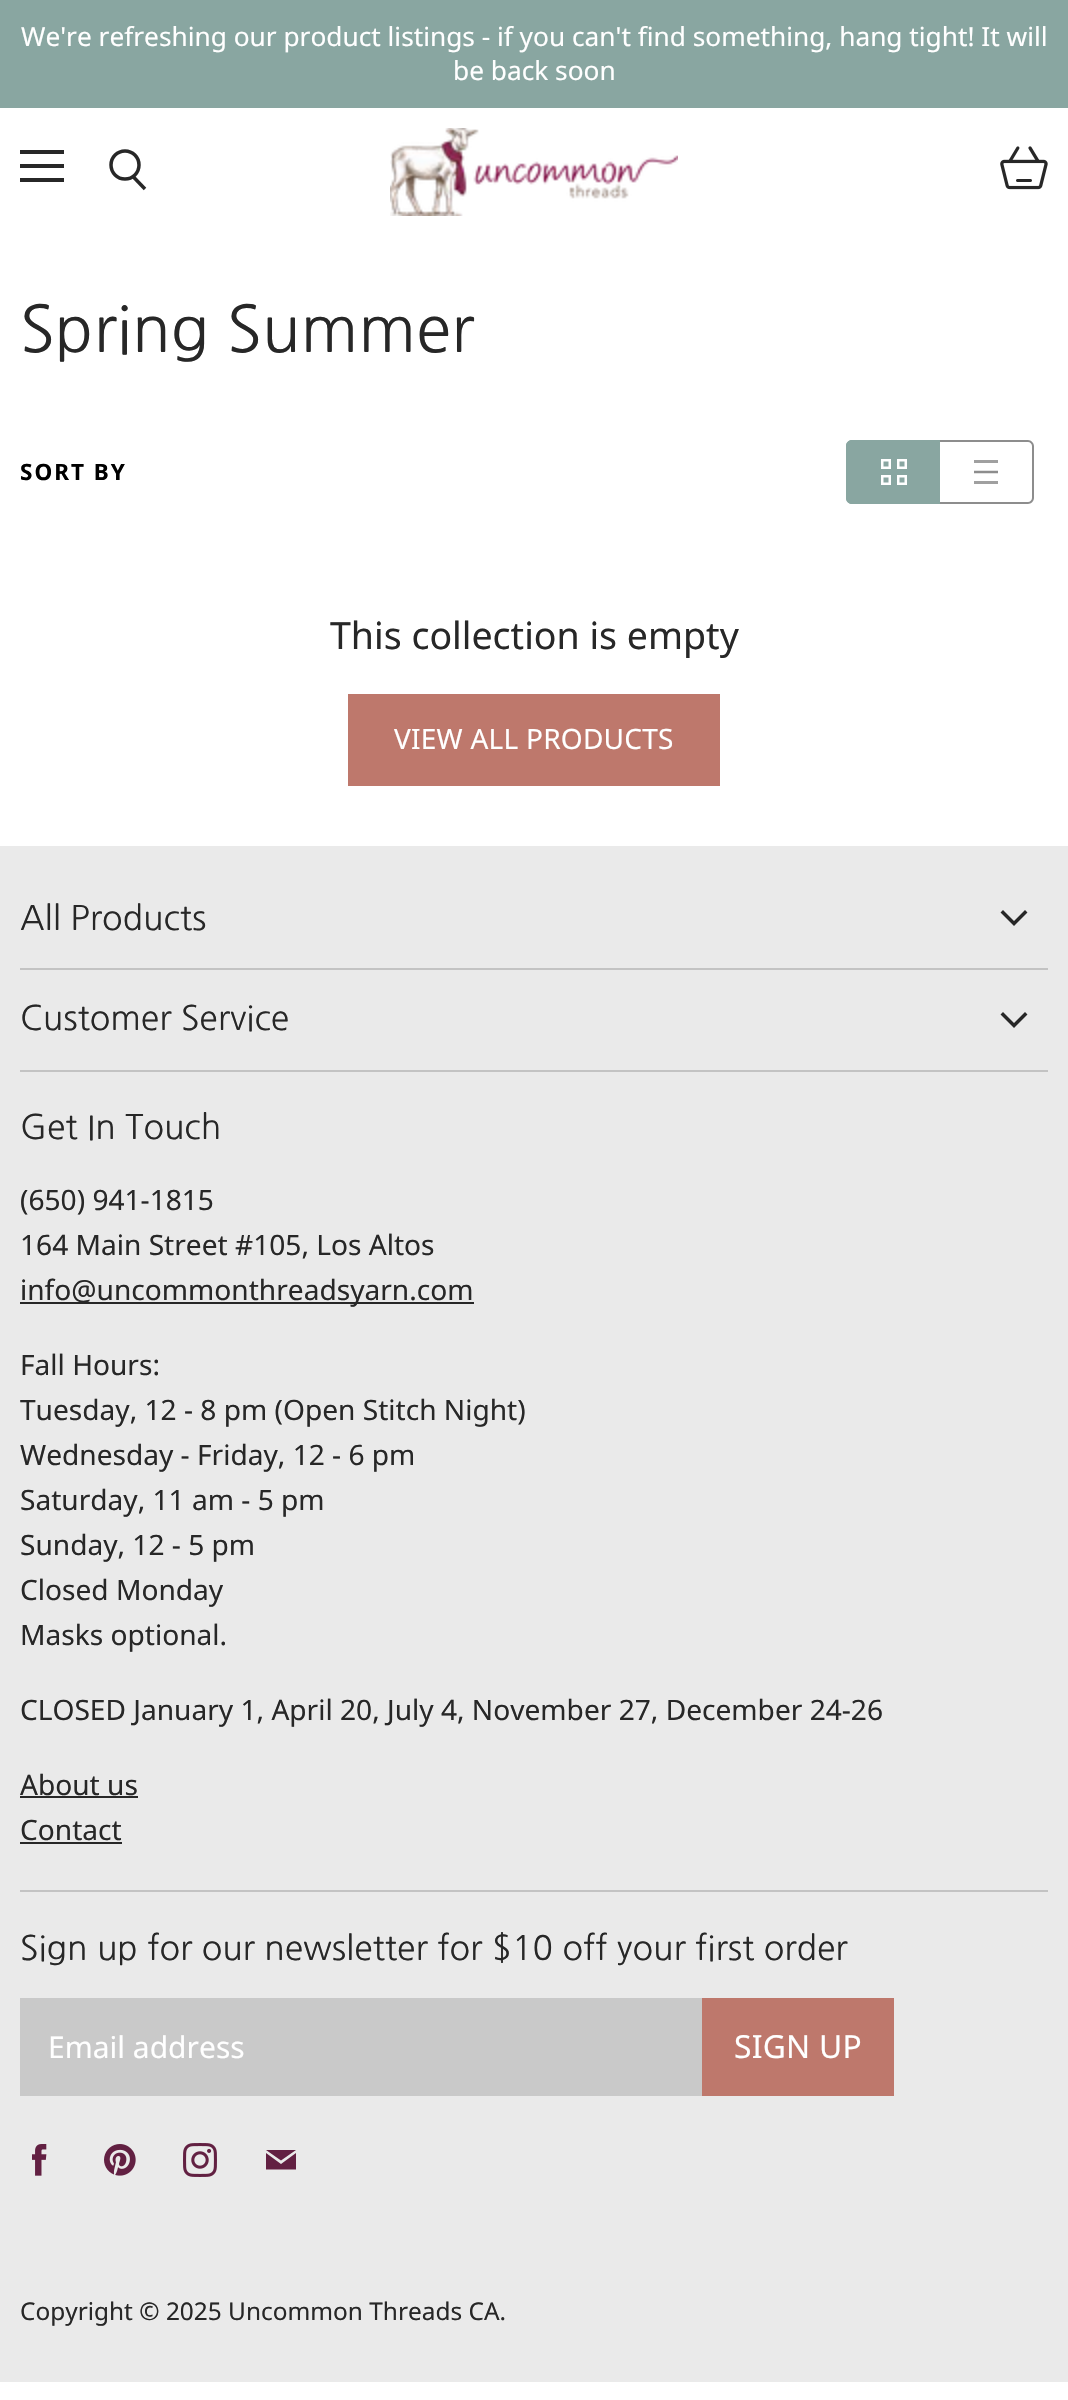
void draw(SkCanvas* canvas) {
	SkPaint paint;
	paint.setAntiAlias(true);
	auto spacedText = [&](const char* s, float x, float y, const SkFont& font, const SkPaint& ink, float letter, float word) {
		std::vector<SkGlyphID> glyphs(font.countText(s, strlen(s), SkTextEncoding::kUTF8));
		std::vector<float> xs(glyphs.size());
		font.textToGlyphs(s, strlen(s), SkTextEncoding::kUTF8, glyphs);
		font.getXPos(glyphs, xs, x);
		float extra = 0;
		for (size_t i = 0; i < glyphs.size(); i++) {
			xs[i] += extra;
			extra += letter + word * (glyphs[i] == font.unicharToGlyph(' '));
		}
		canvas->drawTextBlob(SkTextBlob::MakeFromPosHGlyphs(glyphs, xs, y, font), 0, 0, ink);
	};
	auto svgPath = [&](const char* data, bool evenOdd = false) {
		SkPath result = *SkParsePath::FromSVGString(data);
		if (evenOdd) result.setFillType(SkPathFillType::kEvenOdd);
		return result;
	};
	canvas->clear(0xffffffff);
	paint.setColor(0xff89a6a1);
	canvas->drawRect(SkRect::MakeXYWH(0, 0, 1068, 108), paint);
	SkFont f1(fontMgr->matchFamilyStyle("Noto Sans", SkFontStyle::Normal()), 26.25);
	f1.setSubpixel(true);
	paint.setColor(0xffffffff);
	canvas->drawString("We're refreshing our product listings - if you can't find something, hang tight! It will", 21, 46, f1, paint);
	canvas->drawString("be back soon", 453, 80, f1, paint);
	canvas->drawImageRect(SkImages::DeferredFromEncodedData(SkData::MakeFromFileName("img1.png")), SkRect::MakeXYWH(390, 128, 288, 88), SkSamplingOptions());
	paint.setColor(0xff272727);
	canvas->drawRect(SkRect::MakeXYWH(20, 150, 44, 4), paint);
	canvas->drawRect(SkRect::MakeXYWH(20, 164, 44, 4), paint);
	canvas->drawRect(SkRect::MakeXYWH(20, 178, 44, 4), paint);
	paint.setStroke(true);
	paint.setStrokeWidth(3.5);
	canvas->drawPath(svgPath("M145 189L133 176.5"), paint);
	canvas->drawCircle(125, 165, 14, paint);
	canvas->drawImageRect(SkImages::DeferredFromEncodedData(SkData::MakeFromFileName("img2.png")), SkRect::MakeXYWH(1000, 146, 48, 44), SkSamplingOptions());
	SkFont f2(fontMgr->matchFamilyStyle("NanumGothic", SkFontStyle::Normal()), 63.75);
	f2.setSubpixel(true);
	paint.setStroke(false);
	canvas->drawString("Spring Summer", 20, 352, f2, paint);
	SkFont f3(fontMgr->matchFamilyStyle("Noto Sans", SkFontStyle::Bold()), 22.5);
	f3.setSubpixel(true);
	paint.setColor(0xff000000);
	spacedText("SORT BY", 20, 480, f3, paint, 2, 0);
	paint.setColor(0xff89a6a1);
	canvas->drawPath(svgPath("M852 440H940V504H852C848.5 504 846 501.5 846 498V446C846 442.5 848.5 440 852 440Z"), paint);
	canvas->drawPath(svgPath("M852 440H940V504H852C849 504 846 501 846 498V446C846 443 849 440 852 440ZM852 442H940V502H852C850 502 848 500 848 498V446C848 444 850 442 852 442Z", true), paint);
	paint.setStroke(true);
	paint.setStrokeWidth(2.5);
	paint.setColor(0xffffffff);
	canvas->drawRect(SkRect::MakeXYWH(882.25, 460.25, 7.5, 7.5), paint);
	canvas->drawRect(SkRect::MakeXYWH(898.25, 460.25, 7.5, 7.5), paint);
	canvas->drawRect(SkRect::MakeXYWH(882.25, 476.25, 7.5, 7.5), paint);
	canvas->drawRect(SkRect::MakeXYWH(898.25, 476.25, 7.5, 7.5), paint);
	paint.setStroke(false);
	paint.setColor(0xff8d8d8d);
	canvas->drawPath(svgPath("M940 440H1028C1031 440 1034 443 1034 446V498C1034 501 1031 504 1028 504H940ZM940 442H1028C1030 442 1032 444 1032 446V498C1032 500 1030 502 1028 502H940Z", true), paint);
	paint.setColor(0xffa0a0a0);
	canvas->drawRect(SkRect::MakeXYWH(974, 460, 24, 3), paint);
	paint.setStroke(true);
	paint.setStrokeJoin(SkPaint::kRound_Join);
	paint.setColor(0xff8d8d8d);
	canvas->drawPath(svgPath("M974 472H998"), paint);
	paint.setStroke(false);
	paint.setColor(0xffa0a0a0);
	canvas->drawRect(SkRect::MakeXYWH(974, 481, 24, 3), paint);
	SkFont f4(fontMgr->matchFamilyStyle("Noto Sans", SkFontStyle::Normal()), 37.5);
	f4.setSubpixel(true);
	paint.setColor(0xff272727);
	canvas->drawString("This collection is empty", 330, 649, f4, paint);
	paint.setColor(0xffbe786c);
	canvas->drawRect(SkRect::MakeXYWH(348, 694, 372, 92), paint);
	SkFont f5(fontMgr->matchFamilyStyle("Noto Sans", SkFontStyle::Normal()), 28);
	f5.setSubpixel(true);
	paint.setColor(0xffffffff);
	spacedText("VIEW ALL PRODUCTS", 394, 749, f5, paint, 0.25, 0);
	paint.setColor(0xffeaeaea);
	canvas->drawRect(SkRect::MakeXYWH(0, 846, 1068, 1536), paint);
	paint.setColor(0xffc3c3c3);
	canvas->drawRect(SkRect::MakeXYWH(20, 968, 1028, 2), paint);
	SkFont f6(fontMgr->matchFamilyStyle("NanumGothic", SkFontStyle::Normal()), 33.75);
	f6.setSubpixel(true);
	paint.setColor(0xff272727);
	canvas->drawString("All Products", 20, 930, f6, paint);
	paint.setStroke(true);
	paint.setStrokeWidth(3.5);
	paint.setStrokeCap(SkPaint::kSquare_Cap);
	paint.setStrokeJoin(SkPaint::kMiter_Join);
	canvas->drawPath(svgPath("M1014 923.5L1025 912.5M1014 923.5L1003 912.5"), paint);
	paint.setStroke(false);
	paint.setColor(0xffc3c3c3);
	canvas->drawRect(SkRect::MakeXYWH(20, 1070, 1028, 2), paint);
	paint.setColor(0xff272727);
	canvas->drawString("Customer Service", 20, 1030, f6, paint);
	paint.setStroke(true);
	canvas->drawPath(svgPath("M1014 1025.5L1025 1014.5M1014 1025.5L1003 1014.5"), paint);
	paint.setStroke(false);
	paint.setColor(0xffc3c3c3);
	canvas->drawRect(SkRect::MakeXYWH(20, 1890, 1028, 2), paint);
	paint.setColor(0xff272727);
	canvas->drawString("Get In Touch", 20, 1139, f6, paint);
	SkFont f7(fontMgr->matchFamilyStyle("Noto Sans", SkFontStyle::Normal()), 28.1);
	f7.setSubpixel(true);
	canvas->drawString("(650) 941-1815", 20, 1210, f7, paint);
	canvas->drawString("164 Main Street #105, Los Altos", 20, 1255, f7, paint);
	canvas->drawRect(SkRect::MakeXYWH(20, 1302, 454, 2), paint);
	canvas->drawString("info@uncommonthreadsyarn.com", 20, 1300, f7, paint);
	canvas->drawString("Fall Hours:", 20, 1375, f7, paint);
	canvas->drawString("Tuesday, 12 - 8 pm (Open Stitch Night)", 20, 1420, f7, paint);
	canvas->drawString("Wednesday - Friday, 12 - 6 pm", 20, 1465, f7, paint);
	canvas->drawString("Saturday, 11 am - 5 pm", 20, 1510, f7, paint);
	canvas->drawString("Sunday, 12 - 5 pm", 20, 1555, f7, paint);
	canvas->drawString("Closed Monday", 20, 1600, f7, paint);
	canvas->drawString("Masks optional.", 20, 1645, f7, paint);
	canvas->drawString("CLOSED January 1, April 20, July 4, November 27, December 24-26", 20, 1720, f7, paint);
	canvas->drawString("About us", 20, 1795, f7, paint);
	canvas->drawRect(SkRect::MakeXYWH(20, 1796, 118, 2), paint);
	canvas->drawString("Contact", 20, 1840, f7, paint);
	canvas->drawRect(SkRect::MakeXYWH(20, 1842, 102, 2), paint);
	canvas->drawString("Sign up for our newsletter for $10 off your first order", 20, 1960, f6, paint);
	paint.setColor(0xffc9c9c9);
	canvas->drawRect(SkRect::MakeXYWH(20, 1998, 682, 98), paint);
	SkFont f8(fontMgr->matchFamilyStyle("Noto Sans", SkFontStyle::Normal()), 30);
	f8.setSubpixel(true);
	paint.setColor(0xffffffff);
	canvas->drawString("Email address", 48, 2058, f8, paint);
	paint.setColor(0xffbe786c);
	canvas->drawRect(SkRect::MakeXYWH(702, 1998, 192, 98), paint);
	SkFont f9(fontMgr->matchFamilyStyle("Noto Sans", SkFontStyle::Normal()), 31.75);
	f9.setSubpixel(true);
	paint.setColor(0xffffffff);
	spacedText("SIGN UP", 734, 2058, f9, paint, 0.25, 0);
	canvas->drawImageRect(SkImages::DeferredFromEncodedData(SkData::MakeFromFileName("img3.png")), SkRect::MakeXYWH(32, 2144, 15, 32), SkSamplingOptions());
	canvas->drawImageRect(SkImages::DeferredFromEncodedData(SkData::MakeFromFileName("img4.png")), SkRect::MakeXYWH(104, 2144, 32, 32), SkSamplingOptions());
	canvas->drawImageRect(SkImages::DeferredFromEncodedData(SkData::MakeFromFileName("img5.png")), SkRect::MakeXYWH(183, 2143, 34, 34), SkSamplingOptions());
	paint.setColor(0xff622042);
	canvas->drawPath(svgPath("M296 2150H266L281 2160.5ZM281 2164L266 2153V2169.5H296V2153Z", true), paint);
	SkFont f10(fontMgr->matchFamilyStyle("Noto Sans", SkFontStyle::Normal()), 24.4);
	f10.setSubpixel(true);
	paint.setColor(0xff272727);
	canvas->drawString("Copyright © 2025 Uncommon Threads CA.", 20, 2320, f10, paint);
}
